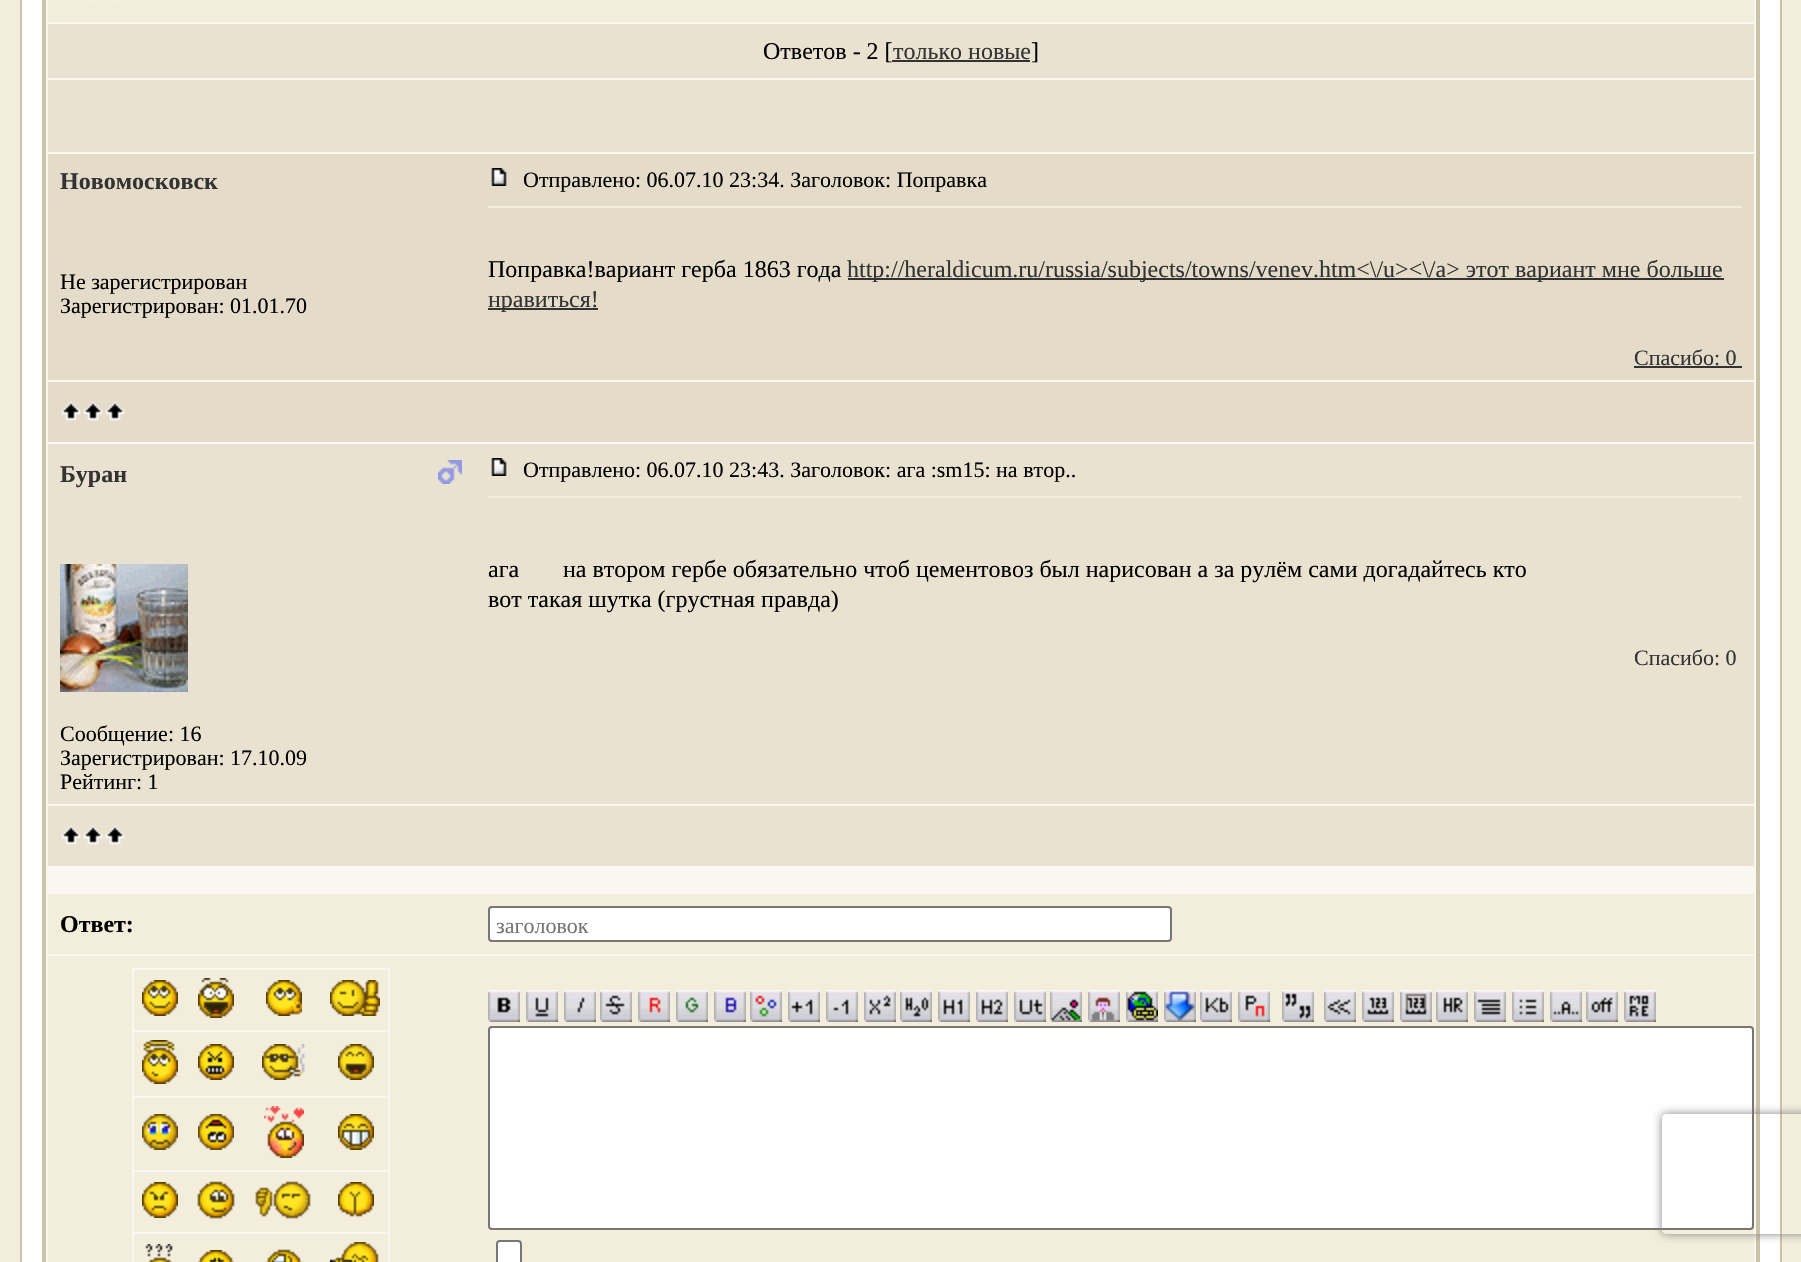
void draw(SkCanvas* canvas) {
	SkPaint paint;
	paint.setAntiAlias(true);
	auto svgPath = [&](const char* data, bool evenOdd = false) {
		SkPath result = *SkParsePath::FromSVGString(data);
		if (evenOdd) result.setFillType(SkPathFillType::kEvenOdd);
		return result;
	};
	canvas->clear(0xfff3eddb);
	paint.setColor(0xffccc2a8);
	canvas->drawRect(SkRect::MakeXYWH(20, 0, 1762, 1262), paint);
	paint.setColor(0xffffffff);
	canvas->drawRect(SkRect::MakeXYWH(22, 0, 1758, 1262), paint);
	paint.setColor(0xffccc2a8);
	canvas->drawRect(SkRect::MakeXYWH(42, 0, 1718, 1262), paint);
	paint.setColor(0xfffaf6f0);
	canvas->drawRect(SkRect::MakeXYWH(46, 0, 1710, 1262), paint);
	paint.setColor(0xfff3eddb);
	canvas->drawRect(SkRect::MakeXYWH(48, 0, 1706, 22), paint);
	canvas->drawImageRect(SkImages::DeferredFromEncodedData(SkData::MakeFromFileName("img1.png")), SkRect::MakeXYWH(66, 0, 54, 1), SkSamplingOptions());
	paint.setColor(0xffeae2d0);
	canvas->drawRect(SkRect::MakeXYWH(48, 24, 1706, 54), paint);
	SkFont f1(fontMgr->matchFamilyStyle("Liberation Serif", SkFontStyle::Normal()), 24);
	f1.setSubpixel(true);
	paint.setColor(0xff000000);
	canvas->drawString("Ответов - 2 [", 763, 59, f1, paint);
	paint.setColor(0xff333333);
	canvas->drawString("только новые", 893, 59, f1, paint);
	canvas->drawRect(SkRect::MakeXYWH(892, 60, 138, 2), paint);
	paint.setColor(0xff000000);
	canvas->drawString("]", 1031, 59, f1, paint);
	paint.setColor(0xffeae2d0);
	canvas->drawRect(SkRect::MakeXYWH(48, 80, 1706, 72), paint);
	paint.setColor(0xffe4dcc9);
	canvas->drawRect(SkRect::MakeXYWH(48, 154, 1706, 226), paint);
	SkFont f2(fontMgr->matchFamilyStyle("Liberation Serif", SkFontStyle::Bold()), 24);
	f2.setSubpixel(true);
	paint.setColor(0xff333333);
	canvas->drawString("Новомосковск", 60, 189, f2, paint);
	SkFont f3(fontMgr->matchFamilyStyle("Liberation Serif", SkFontStyle::Normal()), 22);
	f3.setSubpixel(true);
	paint.setColor(0xff000000);
	canvas->drawString("Не зарегистрирован", 60, 289, f3, paint);
	canvas->drawString("Зарегистрирован: 01.01.70", 60, 313, f3, paint);
	canvas->drawImageRect(SkImages::DeferredFromEncodedData(SkData::MakeFromFileName("img2.png")), SkRect::MakeXYWH(491, 168, 16, 18), SkSamplingOptions());
	canvas->drawString("Отправлено: 06.07.10 23:34. Заголовок: Поправка", 523, 187, f3, paint);
	paint.setColor(0xfff3eddb);
	canvas->drawRect(SkRect::MakeXYWH(488, 206, 1254, 2), paint);
	paint.setColor(0xff000000);
	canvas->drawString("Поправка!вариант герба 1863 года", 488, 277, f1, paint);
	paint.setColor(0xff333333);
	canvas->drawRect(SkRect::MakeXYWH(848, 278, 876, 2), paint);
	canvas->drawString("http://heraldicum.ru/russia/subjects/towns/venev.htm<\\/u><\\/a> этот вариант мне больше", 847, 277, f1, paint);
	canvas->drawRect(SkRect::MakeXYWH(488, 308, 110, 2), paint);
	canvas->drawString("нравиться!", 488, 307, f1, paint);
	canvas->drawString("Спасибо: 0", 1634, 365, f3, paint);
	canvas->drawRect(SkRect::MakeXYWH(1634, 366, 108, 2), paint);
	paint.setColor(0xffe4dcc9);
	canvas->drawRect(SkRect::MakeXYWH(48, 382, 1706, 60), paint);
	canvas->drawImageRect(SkImages::DeferredFromEncodedData(SkData::MakeFromFileName("img3.png")), SkRect::MakeXYWH(61, 401, 64, 20), SkSamplingOptions());
	paint.setColor(0xffeae2d0);
	canvas->drawRect(SkRect::MakeXYWH(48, 444, 1706, 360), paint);
	paint.setColor(0xff333333);
	canvas->drawString("Буран", 60, 482, f2, paint);
	canvas->drawImageRect(SkImages::DeferredFromEncodedData(SkData::MakeFromFileName("img4.png")), SkRect::MakeXYWH(438, 460, 24, 24), SkSamplingOptions());
	canvas->drawImageRect(SkImages::DeferredFromEncodedData(SkData::MakeFromFileName("img5.png")), SkRect::MakeXYWH(60, 564, 128, 128), SkSamplingOptions());
	paint.setColor(0xff000000);
	canvas->drawString("Сообщение: 16", 60, 741, f3, paint);
	canvas->drawString("Зарегистрирован: 17.10.09", 60, 765, f3, paint);
	canvas->drawString("Рейтинг: 1", 60, 789, f3, paint);
	canvas->drawImageRect(SkImages::DeferredFromEncodedData(SkData::MakeFromFileName("img6.png")), SkRect::MakeXYWH(491, 458, 16, 18), SkSamplingOptions());
	canvas->drawString("Отправлено: 06.07.10 23:43. Заголовок: ага :sm15: на втор..", 523, 477, f3, paint);
	paint.setColor(0xfff3eddb);
	canvas->drawRect(SkRect::MakeXYWH(488, 496, 1254, 2), paint);
	paint.setColor(0xff000000);
	canvas->drawString("ага", 488, 577, f1, paint);
	canvas->drawString("на втором гербе обязательно чтоб цементовоз был нарисован а за рулём сами догадайтесь кто", 563, 577, f1, paint);
	canvas->drawString("вот такая шутка (грустная правда)", 488, 607, f1, paint);
	paint.setColor(0xff333333);
	canvas->drawString("Спасибо: 0", 1634, 665, f3, paint);
	paint.setColor(0xffeae2d0);
	canvas->drawRect(SkRect::MakeXYWH(48, 806, 1706, 60), paint);
	canvas->drawImageRect(SkImages::DeferredFromEncodedData(SkData::MakeFromFileName("img7.png")), SkRect::MakeXYWH(61, 825, 64, 20), SkSamplingOptions());
	paint.setColor(0xfff3eddb);
	canvas->drawRect(SkRect::MakeXYWH(48, 894, 1706, 60), paint);
	paint.setColor(0xff000000);
	canvas->drawString("Ответ:", 60, 932, f2, paint);
	paint.setColor(0xffffffff);
	canvas->drawRoundRect(SkRect::MakeXYWH(489, 907, 682, 34), 3, 3, paint);
	paint.setStroke(true);
	paint.setStrokeWidth(2);
	paint.setColor(0xff767676);
	canvas->drawRoundRect(SkRect::MakeXYWH(489, 907, 682, 34), 3, 3, paint);
	paint.setStroke(false);
	paint.setColor(0xff757575);
	canvas->drawString("заголовок", 496, 933, f3, paint);
	paint.setColor(0xfff3eddb);
	canvas->drawRect(SkRect::MakeXYWH(48, 956, 1706, 306), paint);
	paint.setColor(0xfffaf6f0);
	canvas->drawRect(SkRect::MakeXYWH(132, 968, 258, 294), paint);
	paint.setColor(0xfff3eddb);
	canvas->drawRect(SkRect::MakeXYWH(134, 970, 254, 60), paint);
	canvas->drawImageRect(SkImages::DeferredFromEncodedData(SkData::MakeFromFileName("img8.png")), SkRect::MakeXYWH(142, 980, 36, 36), SkSamplingOptions());
	canvas->drawImageRect(SkImages::DeferredFromEncodedData(SkData::MakeFromFileName("img9.png")), SkRect::MakeXYWH(198, 978, 36, 40), SkSamplingOptions());
	canvas->drawImageRect(SkImages::DeferredFromEncodedData(SkData::MakeFromFileName("img10.png")), SkRect::MakeXYWH(266, 980, 36, 36), SkSamplingOptions());
	canvas->drawImageRect(SkImages::DeferredFromEncodedData(SkData::MakeFromFileName("img11.png")), SkRect::MakeXYWH(330, 980, 50, 36), SkSamplingOptions());
	canvas->drawRect(SkRect::MakeXYWH(134, 1032, 254, 64), paint);
	canvas->drawImageRect(SkImages::DeferredFromEncodedData(SkData::MakeFromFileName("img12.png")), SkRect::MakeXYWH(142, 1040, 36, 44), SkSamplingOptions());
	canvas->drawImageRect(SkImages::DeferredFromEncodedData(SkData::MakeFromFileName("img13.png")), SkRect::MakeXYWH(198, 1044, 36, 36), SkSamplingOptions());
	canvas->drawImageRect(SkImages::DeferredFromEncodedData(SkData::MakeFromFileName("img14.png")), SkRect::MakeXYWH(262, 1044, 44, 36), SkSamplingOptions());
	canvas->drawImageRect(SkImages::DeferredFromEncodedData(SkData::MakeFromFileName("img15.png")), SkRect::MakeXYWH(338, 1044, 36, 36), SkSamplingOptions());
	canvas->drawRect(SkRect::MakeXYWH(134, 1098, 254, 72), paint);
	canvas->drawImageRect(SkImages::DeferredFromEncodedData(SkData::MakeFromFileName("img16.png")), SkRect::MakeXYWH(142, 1114, 36, 36), SkSamplingOptions());
	canvas->drawImageRect(SkImages::DeferredFromEncodedData(SkData::MakeFromFileName("img17.png")), SkRect::MakeXYWH(198, 1114, 36, 36), SkSamplingOptions());
	canvas->drawImageRect(SkImages::DeferredFromEncodedData(SkData::MakeFromFileName("img18.png")), SkRect::MakeXYWH(264, 1106, 40, 52), SkSamplingOptions());
	canvas->drawImageRect(SkImages::DeferredFromEncodedData(SkData::MakeFromFileName("img19.png")), SkRect::MakeXYWH(338, 1114, 36, 36), SkSamplingOptions());
	canvas->drawRect(SkRect::MakeXYWH(134, 1172, 254, 60), paint);
	canvas->drawImageRect(SkImages::DeferredFromEncodedData(SkData::MakeFromFileName("img20.png")), SkRect::MakeXYWH(142, 1182, 36, 36), SkSamplingOptions());
	canvas->drawImageRect(SkImages::DeferredFromEncodedData(SkData::MakeFromFileName("img21.png")), SkRect::MakeXYWH(197, 1181, 38, 38), SkSamplingOptions());
	canvas->drawImageRect(SkImages::DeferredFromEncodedData(SkData::MakeFromFileName("img22.png")), SkRect::MakeXYWH(255, 1181, 56, 38), SkSamplingOptions());
	canvas->drawImageRect(SkImages::DeferredFromEncodedData(SkData::MakeFromFileName("img23.png")), SkRect::MakeXYWH(338, 1182, 36, 35), SkSamplingOptions());
	canvas->drawRect(SkRect::MakeXYWH(134, 1234, 254, 28), paint);
	canvas->drawImageRect(SkImages::DeferredFromEncodedData(SkData::MakeFromFileName("img24.png")), SkRect::MakeXYWH(145, 1244, 28, 18), SkSamplingOptions());
	canvas->drawImageRect(SkImages::DeferredFromEncodedData(SkData::MakeFromFileName("img25.png")), SkRect::MakeXYWH(198, 1250, 36, 12), SkSamplingOptions());
	canvas->drawImageRect(SkImages::DeferredFromEncodedData(SkData::MakeFromFileName("img26.png")), SkRect::MakeXYWH(265, 1249, 38, 13), SkSamplingOptions());
	canvas->drawImageRect(SkImages::DeferredFromEncodedData(SkData::MakeFromFileName("img27.png")), SkRect::MakeXYWH(330, 1242, 49, 20), SkSamplingOptions());
	canvas->drawImageRect(SkImages::DeferredFromEncodedData(SkData::MakeFromFileName("img28.png")), SkRect::MakeXYWH(488, 990, 32, 32), SkSamplingOptions());
	canvas->drawImageRect(SkImages::DeferredFromEncodedData(SkData::MakeFromFileName("img29.png")), SkRect::MakeXYWH(526, 990, 32, 32), SkSamplingOptions());
	canvas->drawImageRect(SkImages::DeferredFromEncodedData(SkData::MakeFromFileName("img30.png")), SkRect::MakeXYWH(564, 990, 32, 32), SkSamplingOptions());
	canvas->drawImageRect(SkImages::DeferredFromEncodedData(SkData::MakeFromFileName("img31.png")), SkRect::MakeXYWH(600, 990, 32, 32), SkSamplingOptions());
	canvas->drawImageRect(SkImages::DeferredFromEncodedData(SkData::MakeFromFileName("img32.png")), SkRect::MakeXYWH(638, 990, 32, 32), SkSamplingOptions());
	canvas->drawImageRect(SkImages::DeferredFromEncodedData(SkData::MakeFromFileName("img33.png")), SkRect::MakeXYWH(676, 990, 32, 32), SkSamplingOptions());
	canvas->drawImageRect(SkImages::DeferredFromEncodedData(SkData::MakeFromFileName("img34.png")), SkRect::MakeXYWH(714, 990, 32, 32), SkSamplingOptions());
	canvas->drawImageRect(SkImages::DeferredFromEncodedData(SkData::MakeFromFileName("img35.png")), SkRect::MakeXYWH(750, 990, 32, 32), SkSamplingOptions());
	canvas->drawImageRect(SkImages::DeferredFromEncodedData(SkData::MakeFromFileName("img36.png")), SkRect::MakeXYWH(788, 990, 32, 32), SkSamplingOptions());
	canvas->drawImageRect(SkImages::DeferredFromEncodedData(SkData::MakeFromFileName("img37.png")), SkRect::MakeXYWH(826, 990, 32, 32), SkSamplingOptions());
	canvas->drawImageRect(SkImages::DeferredFromEncodedData(SkData::MakeFromFileName("img38.png")), SkRect::MakeXYWH(864, 990, 32, 32), SkSamplingOptions());
	canvas->drawImageRect(SkImages::DeferredFromEncodedData(SkData::MakeFromFileName("img39.png")), SkRect::MakeXYWH(900, 990, 32, 32), SkSamplingOptions());
	canvas->drawImageRect(SkImages::DeferredFromEncodedData(SkData::MakeFromFileName("img40.png")), SkRect::MakeXYWH(938, 990, 32, 32), SkSamplingOptions());
	canvas->drawImageRect(SkImages::DeferredFromEncodedData(SkData::MakeFromFileName("img41.png")), SkRect::MakeXYWH(976, 990, 32, 32), SkSamplingOptions());
	canvas->drawImageRect(SkImages::DeferredFromEncodedData(SkData::MakeFromFileName("img42.png")), SkRect::MakeXYWH(1014, 990, 32, 32), SkSamplingOptions());
	canvas->drawImageRect(SkImages::DeferredFromEncodedData(SkData::MakeFromFileName("img43.png")), SkRect::MakeXYWH(1050, 990, 32, 32), SkSamplingOptions());
	canvas->drawImageRect(SkImages::DeferredFromEncodedData(SkData::MakeFromFileName("img44.png")), SkRect::MakeXYWH(1088, 990, 32, 32), SkSamplingOptions());
	canvas->drawImageRect(SkImages::DeferredFromEncodedData(SkData::MakeFromFileName("img45.png")), SkRect::MakeXYWH(1126, 990, 32, 32), SkSamplingOptions());
	canvas->drawImageRect(SkImages::DeferredFromEncodedData(SkData::MakeFromFileName("img46.png")), SkRect::MakeXYWH(1164, 990, 32, 32), SkSamplingOptions());
	canvas->drawImageRect(SkImages::DeferredFromEncodedData(SkData::MakeFromFileName("img47.png")), SkRect::MakeXYWH(1200, 990, 32, 32), SkSamplingOptions());
	canvas->drawImageRect(SkImages::DeferredFromEncodedData(SkData::MakeFromFileName("img48.png")), SkRect::MakeXYWH(1238, 990, 32, 32), SkSamplingOptions());
	canvas->drawImageRect(SkImages::DeferredFromEncodedData(SkData::MakeFromFileName("img49.png")), SkRect::MakeXYWH(1282, 990, 32, 32), SkSamplingOptions());
	canvas->drawImageRect(SkImages::DeferredFromEncodedData(SkData::MakeFromFileName("img50.png")), SkRect::MakeXYWH(1324, 990, 32, 32), SkSamplingOptions());
	canvas->drawImageRect(SkImages::DeferredFromEncodedData(SkData::MakeFromFileName("img51.png")), SkRect::MakeXYWH(1362, 990, 32, 32), SkSamplingOptions());
	canvas->drawImageRect(SkImages::DeferredFromEncodedData(SkData::MakeFromFileName("img52.png")), SkRect::MakeXYWH(1400, 990, 32, 32), SkSamplingOptions());
	canvas->drawImageRect(SkImages::DeferredFromEncodedData(SkData::MakeFromFileName("img53.png")), SkRect::MakeXYWH(1436, 990, 32, 32), SkSamplingOptions());
	canvas->drawImageRect(SkImages::DeferredFromEncodedData(SkData::MakeFromFileName("img54.png")), SkRect::MakeXYWH(1474, 990, 32, 32), SkSamplingOptions());
	canvas->drawImageRect(SkImages::DeferredFromEncodedData(SkData::MakeFromFileName("img55.png")), SkRect::MakeXYWH(1512, 990, 32, 32), SkSamplingOptions());
	canvas->drawImageRect(SkImages::DeferredFromEncodedData(SkData::MakeFromFileName("img56.png")), SkRect::MakeXYWH(1550, 990, 32, 32), SkSamplingOptions());
	canvas->drawImageRect(SkImages::DeferredFromEncodedData(SkData::MakeFromFileName("img57.png")), SkRect::MakeXYWH(1586, 990, 32, 32), SkSamplingOptions());
	canvas->drawImageRect(SkImages::DeferredFromEncodedData(SkData::MakeFromFileName("img58.png")), SkRect::MakeXYWH(1624, 990, 32, 32), SkSamplingOptions());
	paint.setColor(0xffffffff);
	canvas->drawRoundRect(SkRect::MakeXYWH(489, 1027, 1264, 202), 3, 3, paint);
	paint.setStroke(true);
	paint.setColor(0xff767676);
	canvas->drawRoundRect(SkRect::MakeXYWH(489, 1027, 1264, 202), 3, 3, paint);
	paint.setStroke(false);
	paint.setColor(0xffffffff);
	canvas->drawRoundRect(SkRect::MakeXYWH(497, 1241, 24, 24), 3, 3, paint);
	paint.setStroke(true);
	paint.setColor(0xff767676);
	canvas->drawRoundRect(SkRect::MakeXYWH(497, 1241, 24, 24), 3, 3, paint);
	canvas->save();
	canvas->clipPath(svgPath("M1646 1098H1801V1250H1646ZM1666 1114H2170C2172 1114 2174 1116 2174 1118V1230C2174 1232 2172 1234 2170 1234H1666C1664 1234 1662 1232 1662 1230V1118C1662 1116 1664 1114 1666 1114Z", true), true);
	paint.setStroke(false);
	paint.setColor(0xff808080);
	paint.setMaskFilter(SkMaskFilter::MakeBlur(kNormal_SkBlurStyle, 5));
	canvas->drawRoundRect(SkRect::MakeXYWH(1662, 1114, 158, 120), 4, 4, paint);
	paint.setMaskFilter(nullptr);
	canvas->restore();
}
